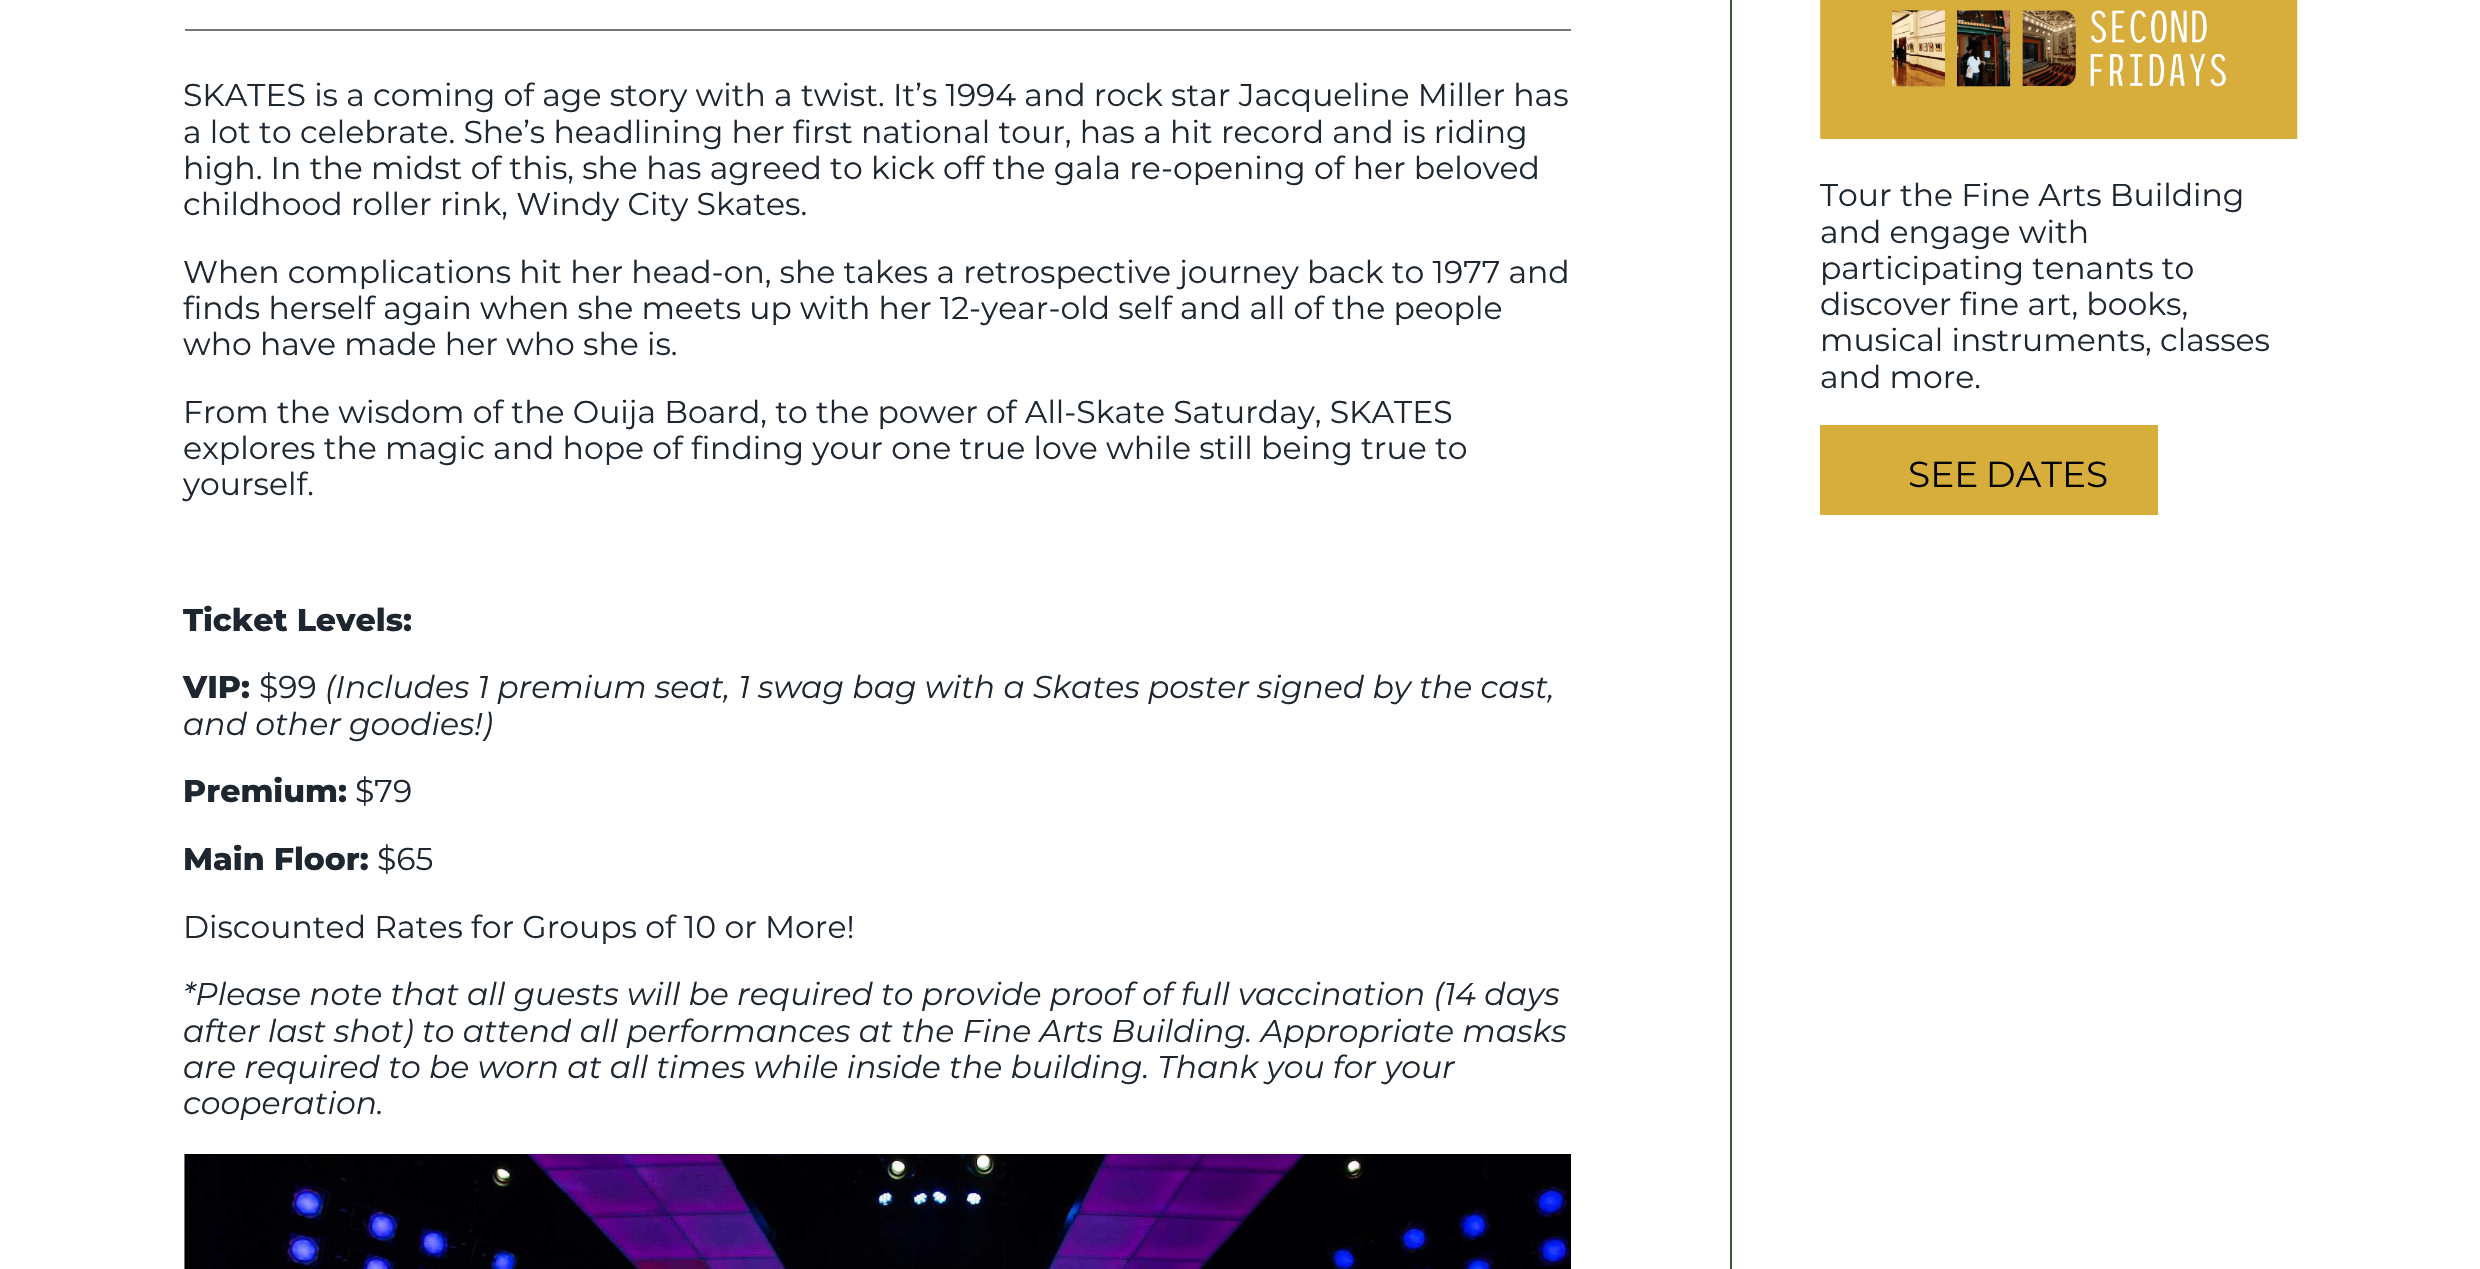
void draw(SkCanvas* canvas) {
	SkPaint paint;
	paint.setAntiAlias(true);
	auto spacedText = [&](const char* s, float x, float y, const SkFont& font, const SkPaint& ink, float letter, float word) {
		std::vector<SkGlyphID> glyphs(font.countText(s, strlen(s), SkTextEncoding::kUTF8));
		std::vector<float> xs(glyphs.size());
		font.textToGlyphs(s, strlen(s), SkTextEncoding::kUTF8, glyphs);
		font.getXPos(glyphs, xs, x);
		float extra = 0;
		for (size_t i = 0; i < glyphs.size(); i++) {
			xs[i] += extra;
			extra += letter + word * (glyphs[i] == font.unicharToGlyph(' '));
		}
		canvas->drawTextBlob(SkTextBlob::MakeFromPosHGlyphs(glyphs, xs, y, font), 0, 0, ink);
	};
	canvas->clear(0xffffffff);
	paint.setColor(0xff74767b);
	canvas->drawRect(SkRect::MakeXYWH(185, 29, 1386, 2), paint);
	SkFont f1(fontMgr->matchFamilyStyle("Montserrat", SkFontStyle::Normal()), 31.5);
	f1.setSubpixel(true);
	paint.setColor(0xff1e2730);
	canvas->drawString("SKATES is a coming of age story with a twist. It’s 1994 and rock star Jacqueline Miller has", 183, 106, f1, paint);
	canvas->drawString("a lot to celebrate. She’s headlining her first national tour, has a hit record and is riding", 183, 143, f1, paint);
	canvas->drawString("high. In the midst of this, she has agreed to kick off the gala re-opening of her beloved", 183, 179, f1, paint);
	canvas->drawString("childhood roller rink, Windy City Skates.", 183, 215, f1, paint);
	canvas->drawString("When complications hit her head-on, she takes a retrospective journey back to 1977 and", 183, 283, f1, paint);
	canvas->drawString("finds herself again when she meets up with her 12-year-old self and all of the people", 183, 319, f1, paint);
	canvas->drawString("who have made her who she is.", 183, 355, f1, paint);
	canvas->drawString("From the wisdom of the Ouija Board, to the power of All-Skate Saturday, SKATES", 183, 423, f1, paint);
	canvas->drawString("explores the magic and hope of finding your one true love while still being true to", 183, 459, f1, paint);
	canvas->drawString("yourself.", 183, 495, f1, paint);
	SkFont f2(fontMgr->matchFamilyStyle("Montserrat", SkFontStyle(800, SkFontStyle::kNormal_Width, SkFontStyle::kUpright_Slant)), 31.5);
	f2.setSubpixel(true);
	canvas->drawString("Ticket Levels:", 183, 631, f2, paint);
	canvas->drawString("VIP:", 183, 698, f2, paint);
	canvas->drawString("$99", 259, 698, f1, paint);
	SkFont f3(fontMgr->matchFamilyStyle("Montserrat", SkFontStyle(100, SkFontStyle::kNormal_Width, SkFontStyle::kItalic_Slant)), 31.5);
	f3.setSubpixel(true);
	canvas->drawString("(Includes 1 premium seat, 1 swag bag with a Skates poster signed by the cast,", 325, 698, f3, paint);
	canvas->drawString("and other goodies!)", 183, 735, f3, paint);
	canvas->drawString("Premium:", 183, 802, f2, paint);
	canvas->drawString("$79", 355, 802, f1, paint);
	canvas->drawString("Main Floor:", 183, 870, f2, paint);
	canvas->drawString("$65", 377, 870, f1, paint);
	canvas->drawString("Discounted Rates for Groups of 10 or More!", 183, 938, f1, paint);
	canvas->drawString("*Please note that all guests will be required to provide proof of full vaccination (14 days", 183, 1005, f3, paint);
	canvas->drawString("after last shot) to attend all performances at the Fine Arts Building. Appropriate masks", 183, 1042, f3, paint);
	canvas->drawString("are required to be worn at all times while inside the building. Thank you for your", 183, 1078, f3, paint);
	canvas->drawString("cooperation.", 183, 1114, f3, paint);
	canvas->drawImageRect(SkImages::DeferredFromEncodedData(SkData::MakeFromFileName("img1.png")), SkRect::MakeXYWH(184, 1154, 1387, 115), SkSamplingOptions());
	paint.setColor(0xff3d5f2f);
	canvas->drawRect(SkRect::MakeXYWH(1730, 0, 2, 1269), paint);
	canvas->drawImageRect(SkImages::DeferredFromEncodedData(SkData::MakeFromFileName("img2.png")), SkRect::MakeXYWH(1820, 0, 478, 139), SkSamplingOptions());
	paint.setColor(0xff1e2730);
	canvas->drawString("Tour the Fine Arts Building", 1820, 206, f1, paint);
	canvas->drawString("and engage with", 1820, 243, f1, paint);
	canvas->drawString("participating tenants to", 1820, 279, f1, paint);
	canvas->drawString("discover fine art, books,", 1820, 315, f1, paint);
	canvas->drawString("musical instruments, classes", 1820, 351, f1, paint);
	canvas->drawString("and more.", 1820, 388, f1, paint);
	paint.setColor(0xffd7ad3c);
	canvas->drawRect(SkRect::MakeXYWH(1820, 425, 338, 90), paint);
	SkFont f4(fontMgr->matchFamilyStyle("Montserrat", SkFontStyle::Normal()), 36);
	f4.setSubpixel(true);
	paint.setColor(0xff000000);
	spacedText("SEE DATES", 1908, 487, f4, paint, 0, -2);
}
